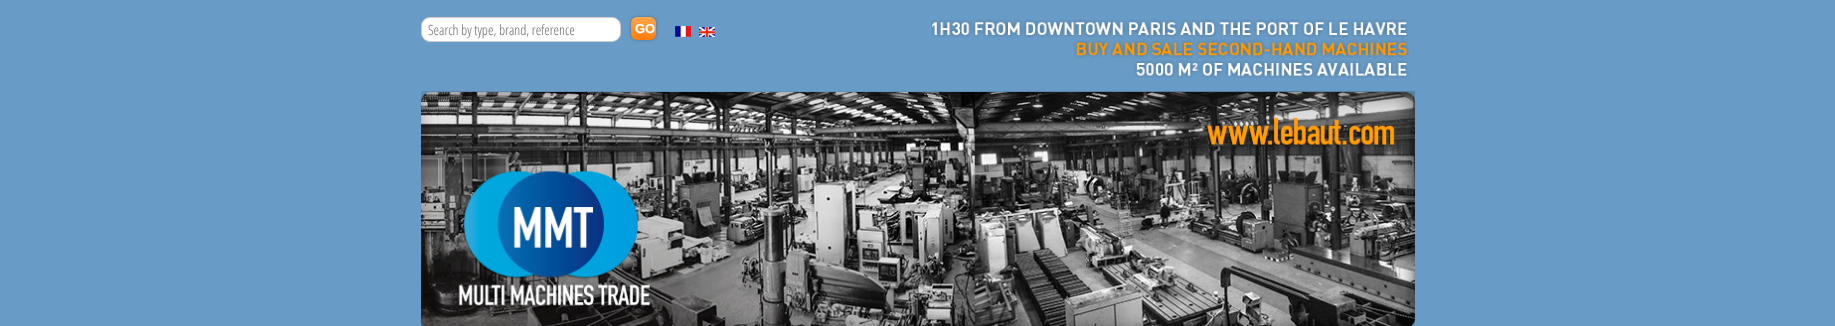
void draw(SkCanvas* canvas) {
	SkPaint paint;
	paint.setAntiAlias(true);
	canvas->clear(0xff689bc6);
	paint.setColor(0xffffffff);
	canvas->drawRoundRect(SkRect::MakeXYWH(421.5, 17.5, 199, 24), 8.5, 8.5, paint);
	paint.setStroke(true);
	paint.setStrokeWidth(1);
	paint.setColor(0xffcccccc);
	canvas->drawRoundRect(SkRect::MakeXYWH(421.5, 17.5, 199, 24), 8.5, 8.5, paint);
	SkFont f1(fontMgr->matchFamilyStyle("Open Sans Condensed", SkFontStyle(300, SkFontStyle::kNormal_Width, SkFontStyle::kUpright_Slant)), 14);
	f1.setSubpixel(true);
	paint.setStroke(false);
	paint.setColor(0xff757575);
	canvas->drawString("Search by type, brand, reference", 428, 35, f1, paint);
	paint.setColor(0x4d000000);
	paint.setMaskFilter(SkMaskFilter::MakeBlur(kNormal_SkBlurStyle, 1.5));
	canvas->drawRoundRect(SkRect::MakeXYWH(631, 17, 25, 23), 6, 6, paint);
	paint.setMaskFilter(nullptr);
	{
		const SkColor colors[] = {0xffffa84c, 0xffff7b0d};
		const float stops[] = {0, 1};
		const SkPoint ends[] = {{644, 17}, {644, 40}};
		paint.setShader(SkGradientShader::MakeLinear(ends, colors, stops, 2, SkTileMode::kClamp));
		paint.setAlpha(255);
	}
	canvas->drawRoundRect(SkRect::MakeXYWH(631, 17, 25, 23), 6, 6, paint);
	SkFont f2(fontMgr->matchFamilyStyle("Liberation Sans", SkFontStyle::Bold()), 13);
	f2.setSubpixel(true);
	paint.setShader(nullptr);
	paint.setColor(0xffffffff);
	canvas->drawString("GO", 635, 33, f2, paint);
	canvas->drawImageRect(SkImages::DeferredFromEncodedData(SkData::MakeFromFileName("img1.png")), SkRect::MakeXYWH(675, 26, 16, 11), SkSamplingOptions());
	canvas->drawImageRect(SkImages::DeferredFromEncodedData(SkData::MakeFromFileName("img2.png")), SkRect::MakeXYWH(699, 27, 16, 10), SkSamplingOptions());
	canvas->drawImageRect(SkImages::DeferredFromEncodedData(SkData::MakeFromFileName("img3.png")), SkRect::MakeXYWH(931, 19, 478, 59), SkSamplingOptions());
	canvas->drawImageRect(SkImages::DeferredFromEncodedData(SkData::MakeFromFileName("img4.png")), SkRect::MakeXYWH(421, 91, 994, 235), SkSamplingOptions());
}
